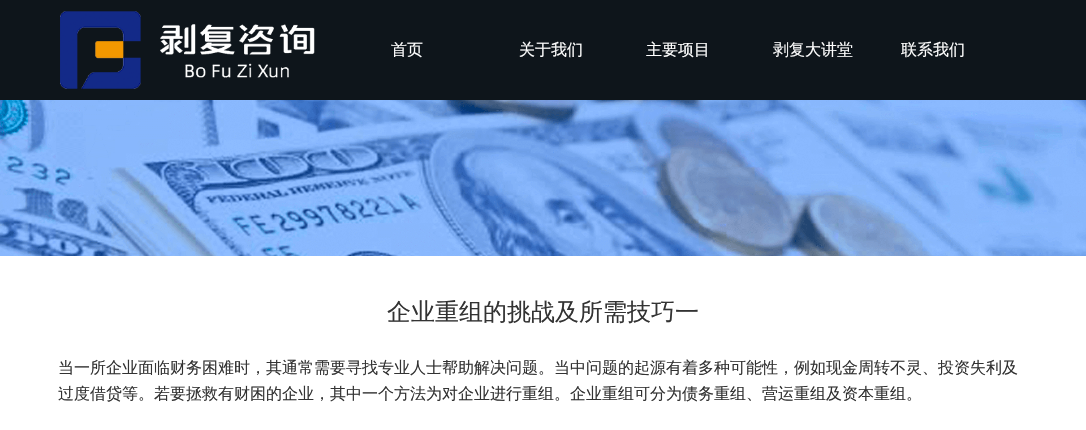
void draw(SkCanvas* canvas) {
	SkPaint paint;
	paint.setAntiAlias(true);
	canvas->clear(0xffffffff);
	paint.setColor(0xff0e151b);
	canvas->drawRect(SkRect::MakeXYWH(0, 0, 1086, 100), paint);
	canvas->drawImageRect(SkImages::DeferredFromEncodedData(SkData::MakeFromFileName("img1.png")), SkRect::MakeXYWH(60, 11, 255, 78), SkSamplingOptions());
	SkFont f1(fontMgr->matchFamilyStyle("WenQuanYi Zen Hei", SkFontStyle(500, SkFontStyle::kNormal_Width, SkFontStyle::kUpright_Slant)), 16);
	f1.setSubpixel(true);
	paint.setColor(0xffffffff);
	canvas->drawString("首页", 391, 55, f1, paint);
	canvas->drawString("关于我们", 519, 55, f1, paint);
	canvas->drawString("主要项目", 646, 55, f1, paint);
	canvas->drawString("剥复大讲堂", 773, 55, f1, paint);
	canvas->drawString("联系我们", 901, 55, f1, paint);
	canvas->drawImageRect(SkImages::DeferredFromEncodedData(SkData::MakeFromFileName("img2.png")), SkRect::MakeXYWH(0, 100, 1086, 156), SkSamplingOptions());
	SkFont f2(fontMgr->matchFamilyStyle("WenQuanYi Zen Hei", SkFontStyle(500, SkFontStyle::kNormal_Width, SkFontStyle::kUpright_Slant)), 24);
	f2.setSubpixel(true);
	paint.setColor(0xff333333);
	canvas->drawString("企业重组的挑战及所需技巧一", 387, 320, f2, paint);
	canvas->drawString("当一所企业面临财务困难时，其通常需要寻找专业人士帮助解决问题。当中问题的起源有着多种可能性，例如现金周转不灵、投资失利及", 58, 373, f1, paint);
	canvas->drawString("过度借贷等。若要拯救有财困的企业，其中一个方法为对企业进行重组。企业重组可分为债务重组、营运重组及资本重组。", 58, 399, f1, paint);
}
